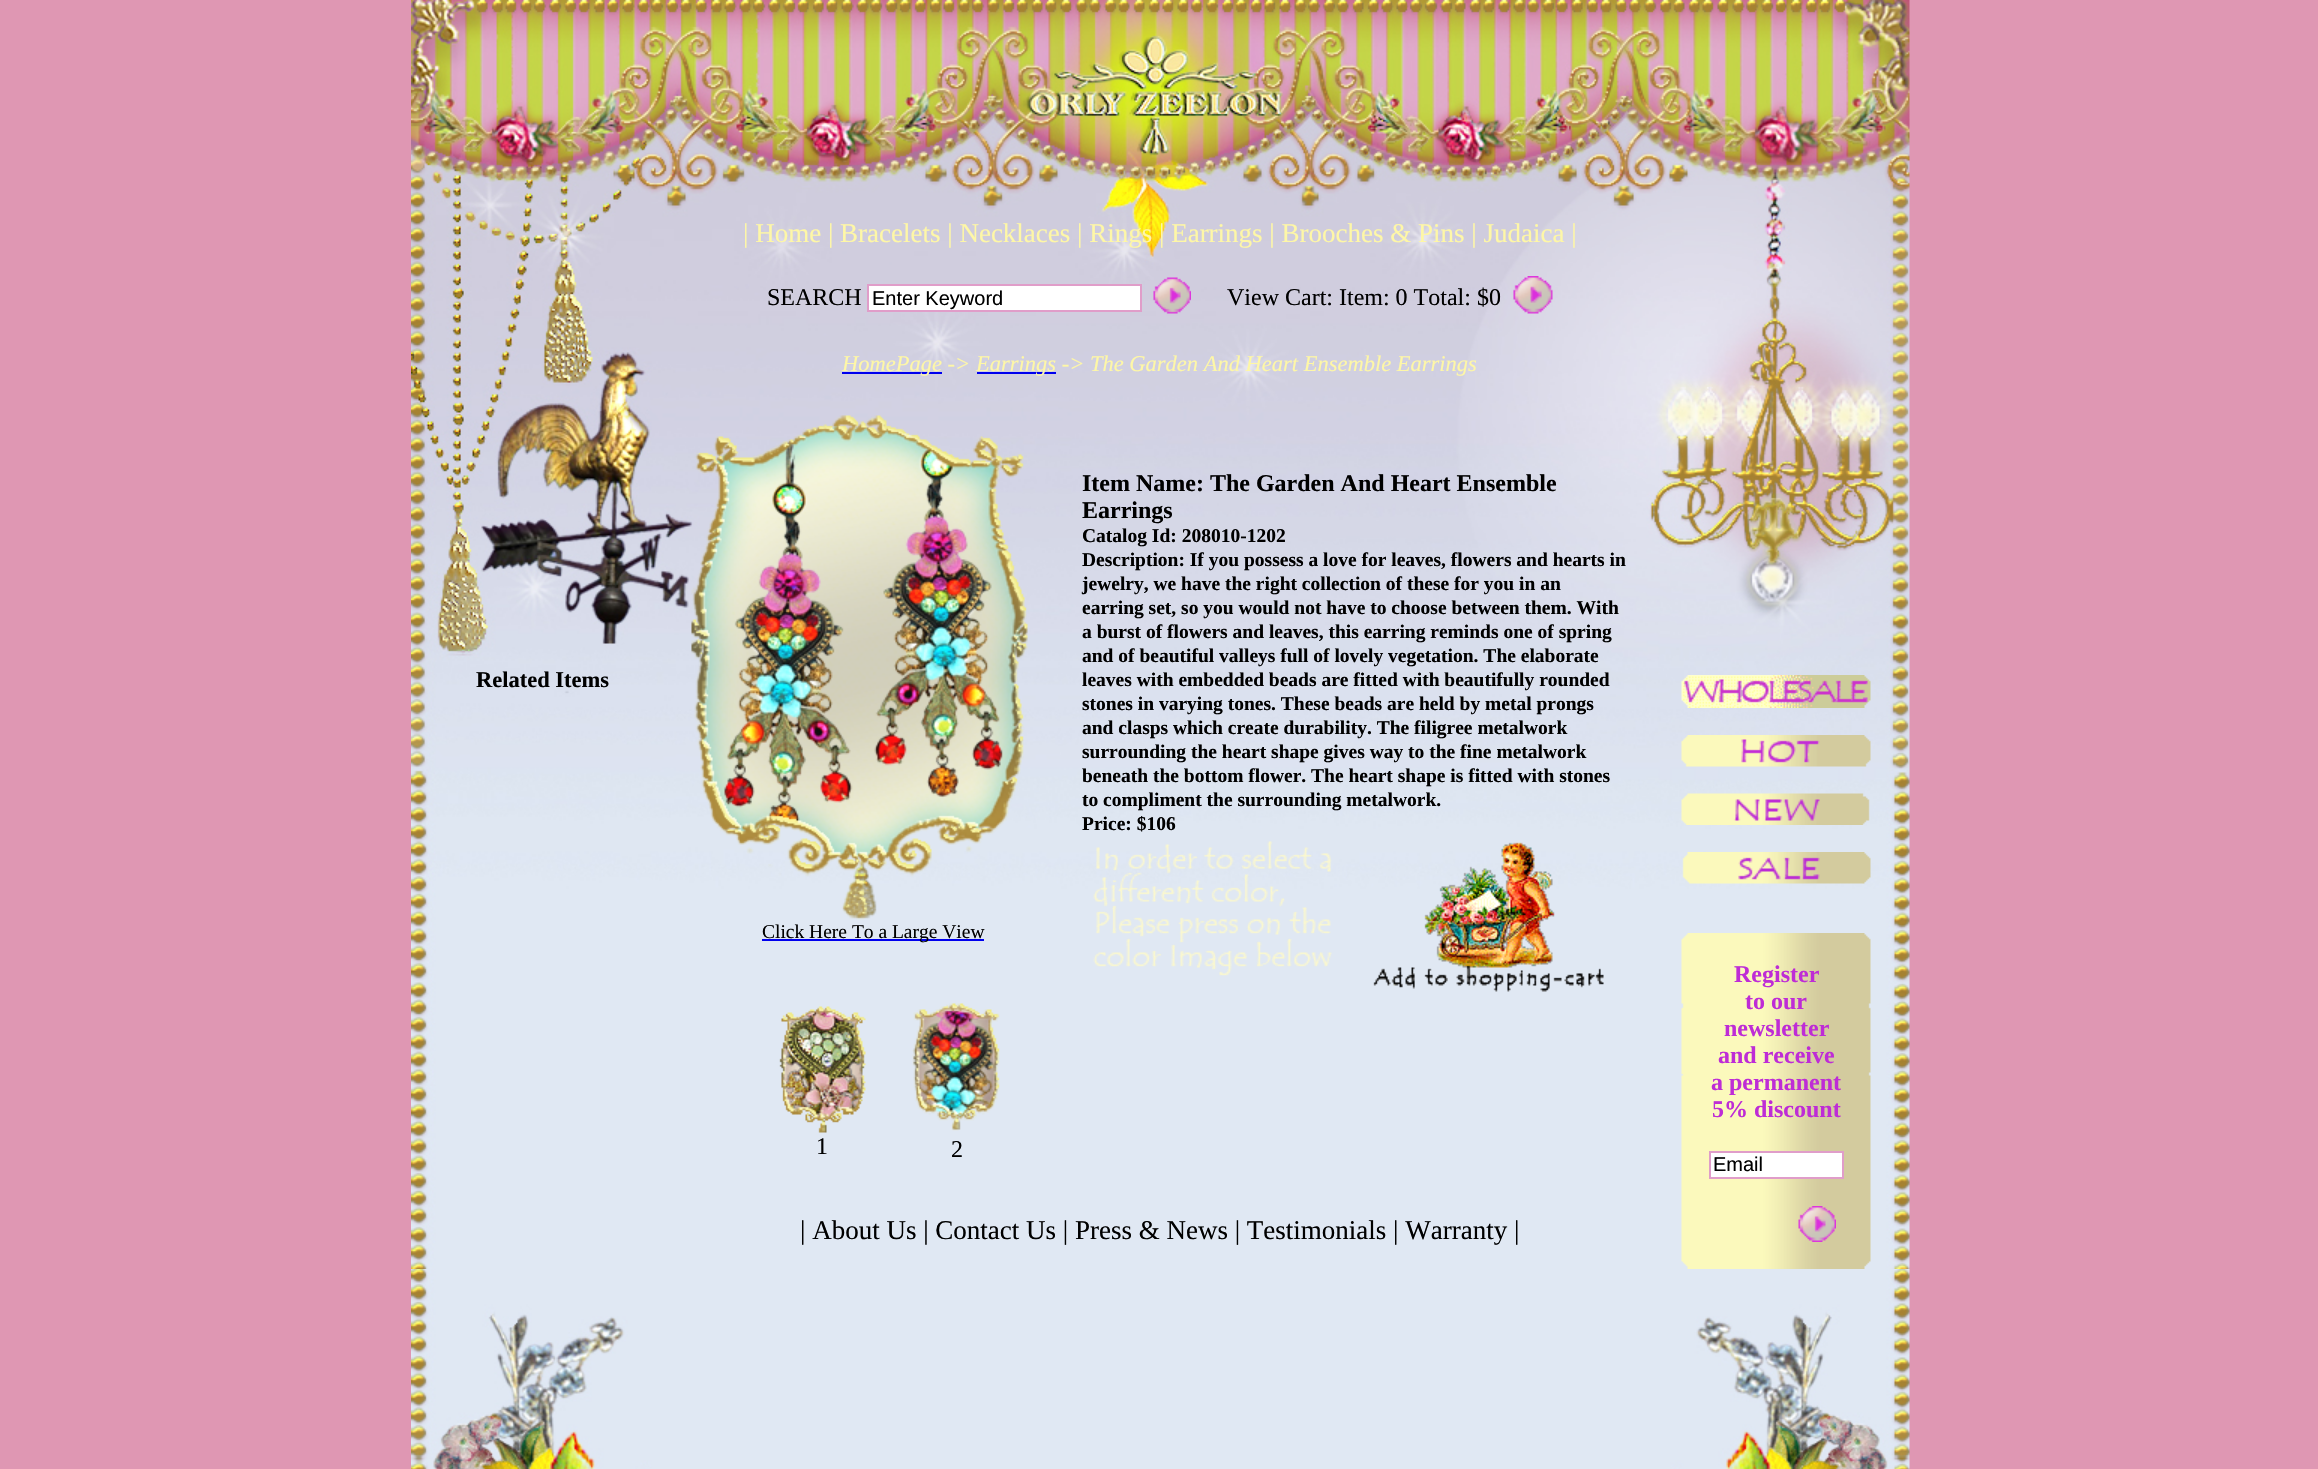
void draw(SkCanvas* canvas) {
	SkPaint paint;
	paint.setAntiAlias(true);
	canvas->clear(0xffdf97b3);
	canvas->drawImageRect(SkImages::DeferredFromEncodedData(SkData::MakeFromFileName("img1.png")), SkRect::MakeXYWH(411, 0, 1499, 1269), SkSamplingOptions());
	SkFont f1(fontMgr->matchFamilyStyle("Liberation Serif", SkFontStyle::Bold()), 22.5);
	f1.setSubpixel(true);
	paint.setColor(0xff000000);
	canvas->drawString("Related Items", 476, 687, f1, paint);
	SkFont f2(fontMgr->matchFamilyStyle("Liberation Serif", SkFontStyle::Normal()), 27);
	f2.setSubpixel(true);
	paint.setColor(0xfffef7a7);
	canvas->drawString("| Home | Bracelets | Necklaces | Rings | Earrings | Brooches & Pins | Judaica |", 743, 242, f2, paint);
	SkFont f3(fontMgr->matchFamilyStyle("Liberation Serif", SkFontStyle::Normal()), 24);
	f3.setSubpixel(true);
	paint.setColor(0xff000000);
	canvas->drawString("SEARCH", 767, 305, f3, paint);
	paint.setColor(0xffffffff);
	canvas->drawRect(SkRect::MakeXYWH(868, 285, 273, 26), paint);
	paint.setStroke(true);
	paint.setStrokeWidth(2);
	paint.setColor(0xffe09dc9);
	canvas->drawRect(SkRect::MakeXYWH(868, 285, 273, 26), paint);
	SkFont f4(fontMgr->matchFamilyStyle("Liberation Sans", SkFontStyle::Normal()), 20);
	f4.setSubpixel(true);
	paint.setStroke(false);
	paint.setColor(0xff000000);
	canvas->drawString("Enter Keyword", 872, 305, f4, paint);
	canvas->drawImageRect(SkImages::DeferredFromEncodedData(SkData::MakeFromFileName("img2.png")), SkRect::MakeXYWH(1153, 277, 38, 37), SkSamplingOptions());
	canvas->drawString("View Cart: Item: 0 Total: $0", 1227, 305, f3, paint);
	canvas->drawImageRect(SkImages::DeferredFromEncodedData(SkData::MakeFromFileName("img3.png")), SkRect::MakeXYWH(1513, 276, 40, 38), SkSamplingOptions());
	paint.setColor(0xff0000ee);
	canvas->drawRect(SkRect::MakeXYWH(842, 372, 100, 2), paint);
	SkFont f5(fontMgr->matchFamilyStyle("Liberation Serif", SkFontStyle::Italic()), 22.5);
	f5.setSubpixel(true);
	paint.setColor(0xfffef7a7);
	canvas->drawString("HomePage ->", 842, 371, f5, paint);
	paint.setColor(0xff0000ee);
	canvas->drawRect(SkRect::MakeXYWH(977, 372, 79, 2), paint);
	paint.setColor(0xfffef7a7);
	canvas->drawString("Earrings -> The Garden And Heart Ensemble Earrings", 976, 371, f5, paint);
	SkFont f6(fontMgr->matchFamilyStyle("Liberation Serif", SkFontStyle::Bold()), 24);
	f6.setSubpixel(true);
	paint.setColor(0xff000000);
	canvas->drawString("Item Name: The Garden And Heart Ensemble", 1082, 491, f6, paint);
	canvas->drawString("Earrings", 1082, 518, f6, paint);
	SkFont f7(fontMgr->matchFamilyStyle("Liberation Serif", SkFontStyle::Bold()), 19.5);
	f7.setSubpixel(true);
	canvas->drawString("Catalog Id: 208010-1202", 1082, 542, f7, paint);
	canvas->drawString("Description: If you possess a love for leaves, flowers and hearts in", 1082, 566, f7, paint);
	canvas->drawString("jewelry, we have the right collection of these for you in an", 1082, 590, f7, paint);
	canvas->drawString("earring set, so you would not have to choose between them. With", 1082, 614, f7, paint);
	canvas->drawString("a burst of flowers and leaves, this earring reminds one of spring", 1082, 638, f7, paint);
	canvas->drawString("and of beautiful valleys full of lovely vegetation. The elaborate", 1082, 662, f7, paint);
	canvas->drawString("leaves with embedded beads are fitted with beautifully rounded", 1082, 686, f7, paint);
	canvas->drawString("stones in varying tones. These beads are held by metal prongs", 1082, 710, f7, paint);
	canvas->drawString("and clasps which create durability. The filigree metalwork", 1082, 734, f7, paint);
	canvas->drawString("surrounding the heart shape gives way to the fine metalwork", 1082, 758, f7, paint);
	canvas->drawString("beneath the bottom flower. The heart shape is fitted with stones", 1082, 782, f7, paint);
	canvas->drawString("to compliment the surrounding metalwork.", 1082, 806, f7, paint);
	canvas->drawString("Price: $106", 1082, 830, f7, paint);
	canvas->drawImageRect(SkImages::DeferredFromEncodedData(SkData::MakeFromFileName("img4.png")), SkRect::MakeXYWH(1093, 841, 239, 135), SkSamplingOptions());
	canvas->drawImageRect(SkImages::DeferredFromEncodedData(SkData::MakeFromFileName("img5.png")), SkRect::MakeXYWH(1373, 842, 231, 150), SkSamplingOptions());
	canvas->drawImageRect(SkImages::DeferredFromEncodedData(SkData::MakeFromFileName("img6.png")), SkRect::MakeXYWH(691, 415, 337, 505), SkSamplingOptions());
	paint.setColor(0xff0000ee);
	canvas->drawRect(SkRect::MakeXYWH(762, 939, 222, 2), paint);
	SkFont f8(fontMgr->matchFamilyStyle("Liberation Serif", SkFontStyle::Normal()), 19.5);
	f8.setSubpixel(true);
	paint.setColor(0xff000000);
	canvas->drawString("Click Here To a Large View", 762, 938, f8, paint);
	canvas->drawImageRect(SkImages::DeferredFromEncodedData(SkData::MakeFromFileName("img7.png")), SkRect::MakeXYWH(779, 1006, 87, 127), SkSamplingOptions());
	canvas->drawString("1", 816, 1154, f3, paint);
	canvas->drawImageRect(SkImages::DeferredFromEncodedData(SkData::MakeFromFileName("img8.png")), SkRect::MakeXYWH(912, 1003, 88, 128), SkSamplingOptions());
	canvas->drawString("2", 951, 1157, f3, paint);
	canvas->drawString("| About Us | Contact Us | Press & News | Testimonials | Warranty |", 800, 1239, f2, paint);
	canvas->drawImageRect(SkImages::DeferredFromEncodedData(SkData::MakeFromFileName("img9.png")), SkRect::MakeXYWH(1681, 675, 190, 33), SkSamplingOptions());
	canvas->drawImageRect(SkImages::DeferredFromEncodedData(SkData::MakeFromFileName("img10.png")), SkRect::MakeXYWH(1681, 735, 190, 32), SkSamplingOptions());
	canvas->drawImageRect(SkImages::DeferredFromEncodedData(SkData::MakeFromFileName("img11.png")), SkRect::MakeXYWH(1681, 793, 189, 32), SkSamplingOptions());
	canvas->drawImageRect(SkImages::DeferredFromEncodedData(SkData::MakeFromFileName("img12.png")), SkRect::MakeXYWH(1682, 852, 189, 32), SkSamplingOptions());
	canvas->drawImageRect(SkImages::DeferredFromEncodedData(SkData::MakeFromFileName("img13.png")), SkRect::MakeXYWH(1681, 933, 190, 336), SkSamplingOptions());
	paint.setColor(0xffbe2cd6);
	canvas->drawString("Register", 1734, 982, f6, paint);
	canvas->drawString("to our", 1745, 1009, f6, paint);
	canvas->drawString("newsletter", 1724, 1036, f6, paint);
	canvas->drawString("and receive", 1718, 1063, f6, paint);
	canvas->drawString("a permanent", 1711, 1090, f6, paint);
	canvas->drawString("5% discount", 1712, 1117, f6, paint);
	paint.setColor(0xffffffff);
	canvas->drawRect(SkRect::MakeXYWH(1710, 1152, 133, 26), paint);
	paint.setStroke(true);
	paint.setColor(0xffe09dc9);
	canvas->drawRect(SkRect::MakeXYWH(1710, 1152, 133, 26), paint);
	paint.setStroke(false);
	paint.setColor(0xff000000);
	canvas->drawString("Email", 1713, 1171, f4, paint);
	canvas->drawImageRect(SkImages::DeferredFromEncodedData(SkData::MakeFromFileName("img14.png")), SkRect::MakeXYWH(1798, 1206, 38, 36), SkSamplingOptions());
	canvas->drawImageRect(SkImages::DeferredFromEncodedData(SkData::MakeFromFileName("img15.png")), SkRect::MakeXYWH(411, 1269, 1499, 200), SkSamplingOptions());
}
